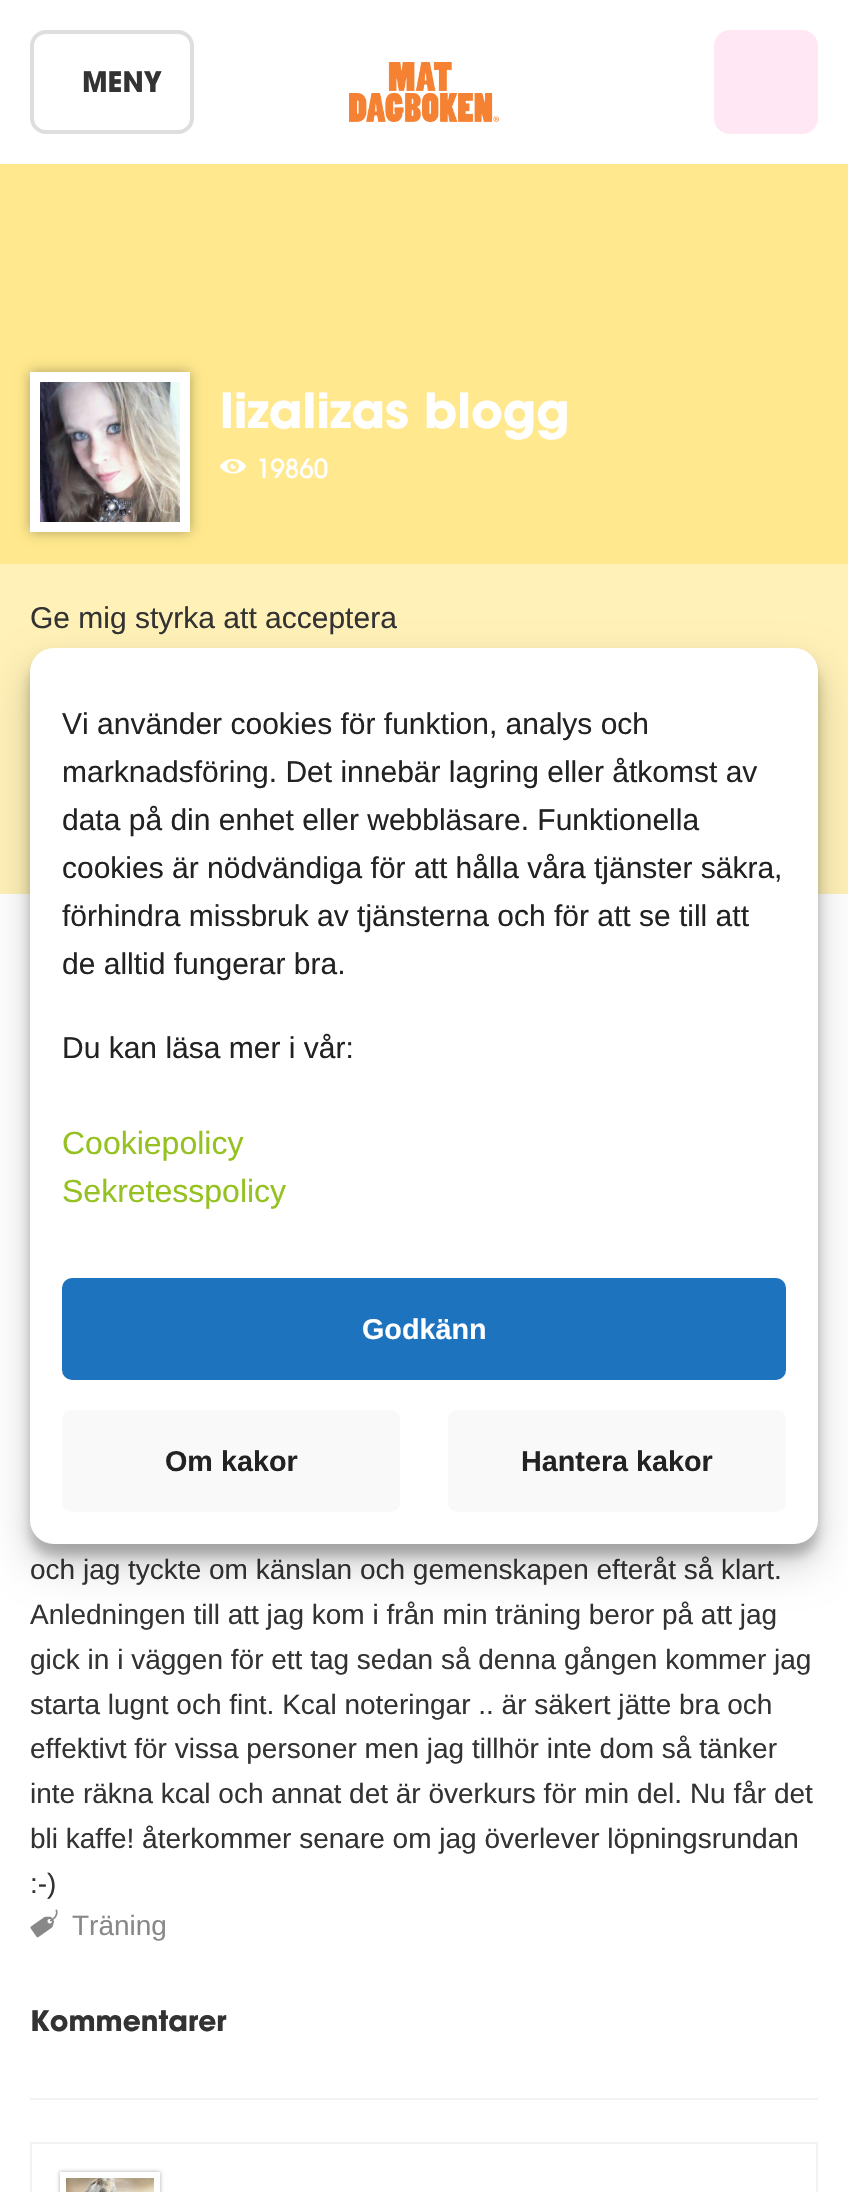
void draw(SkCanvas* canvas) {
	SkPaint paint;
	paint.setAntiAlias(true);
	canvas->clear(0xffffffff);
	paint.setStroke(true);
	paint.setStrokeWidth(4);
	paint.setColor(0xffdedede);
	canvas->drawRoundRect(SkRect::MakeXYWH(32, 32, 160, 100), 14, 14, paint);
	SkFont f1(fontMgr->matchFamilyStyle("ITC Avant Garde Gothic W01", SkFontStyle::Bold()), 28);
	f1.setSubpixel(true);
	paint.setStroke(false);
	paint.setColor(0xff333333);
	canvas->drawString("MENY", 82, 92, f1, paint);
	canvas->drawImageRect(SkImages::DeferredFromEncodedData(SkData::MakeFromFileName("img1.png")), SkRect::MakeXYWH(349, 62, 150, 60), SkSamplingOptions());
	paint.setColor(0xffffe7f3);
	canvas->drawRoundRect(SkRect::MakeXYWH(714, 30, 104, 104), 16, 16, paint);
	paint.setColor(0xffffe88d);
	canvas->drawRect(SkRect::MakeXYWH(0, 164, 848, 400), paint);
	paint.setColor(0x52000000);
	paint.setMaskFilter(SkMaskFilter::MakeBlur(kNormal_SkBlurStyle, 6));
	canvas->drawRect(SkRect::MakeXYWH(30, 372, 160, 160), paint);
	paint.setMaskFilter(nullptr);
	paint.setStroke(true);
	paint.setStrokeWidth(10);
	paint.setColor(0xffffffff);
	canvas->drawRect(SkRect::MakeXYWH(35, 377, 150, 150), paint);
	canvas->drawImageRect(SkImages::DeferredFromEncodedData(SkData::MakeFromFileName("img2.png")), SkRect::MakeXYWH(40, 382, 140, 140), SkSamplingOptions());
	SkFont f2(fontMgr->matchFamilyStyle("ITC Avant Garde Gothic W01", SkFontStyle::Bold()), 48);
	f2.setSubpixel(true);
	paint.setStroke(false);
	canvas->drawString("lizalizas blogg", 220, 428, f2, paint);
	canvas->drawImageRect(SkImages::DeferredFromEncodedData(SkData::MakeFromFileName("img3.png")), SkRect::MakeXYWH(220, 459, 26, 15), SkSamplingOptions());
	SkFont f3(fontMgr->matchFamilyStyle("ITC Avant Garde Gothic W01", SkFontStyle(500, SkFontStyle::kNormal_Width, SkFontStyle::kUpright_Slant)), 26);
	f3.setSubpixel(true);
	canvas->drawString("19860", 256, 478, f3, paint);
	paint.setColor(0xfffff1b7);
	canvas->drawRect(SkRect::MakeXYWH(0, 564, 848, 330), paint);
	SkFont f4(fontMgr->matchFamilyStyle("Liberation Sans", SkFontStyle::Normal()), 30);
	f4.setSubpixel(true);
	paint.setColor(0xff333333);
	canvas->drawString("Ge mig styrka att acceptera", 30, 628, f4, paint);
	SkFont f5(fontMgr->matchFamilyStyle("Liberation Sans", SkFontStyle::Normal()), 28);
	f5.setSubpixel(true);
	canvas->drawString("och jag tyckte om känslan och gemenskapen efteråt så klart.", 30, 1579, f5, paint);
	canvas->drawString("Anledningen till att jag kom i från min träning beror på att jag", 30, 1624, f5, paint);
	canvas->drawString("gick in i väggen för ett tag sedan så denna gången kommer jag", 30, 1669, f5, paint);
	canvas->drawString("starta lugnt och fint. Kcal noteringar .. är säkert jätte bra och", 30, 1714, f5, paint);
	canvas->drawString("effektivt för vissa personer men jag tillhör inte dom så tänker", 30, 1758, f5, paint);
	canvas->drawString("inte räkna kcal och annat det är överkurs för min del. Nu får det", 30, 1803, f5, paint);
	canvas->drawString("bli kaffe! återkommer senare om jag överlever löpningsrundan", 30, 1848, f5, paint);
	canvas->drawString(":-)", 30, 1893, f5, paint);
	canvas->drawImageRect(SkImages::DeferredFromEncodedData(SkData::MakeFromFileName("img4.png")), SkRect::MakeXYWH(30, 1909, 28, 29), SkSamplingOptions());
	paint.setColor(0xff888888);
	canvas->drawString("Träning", 72, 1935, f5, paint);
	paint.setColor(0xfff2f2f2);
	canvas->drawRect(SkRect::MakeXYWH(30, 2098, 788, 2), paint);
	paint.setColor(0xff333333);
	canvas->drawString("Kommentarer", 30, 2031, f1, paint);
	paint.setStroke(true);
	paint.setStrokeWidth(2);
	paint.setColor(0xfff2f2f2);
	canvas->drawRect(SkRect::MakeXYWH(31, 2143, 786, 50), paint);
	paint.setStroke(false);
	paint.setColor(0x52000000);
	paint.setMaskFilter(SkMaskFilter::MakeBlur(kNormal_SkBlurStyle, 2));
	canvas->drawRect(SkRect::MakeXYWH(60, 2172, 100, 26), paint);
	paint.setMaskFilter(nullptr);
	canvas->drawImageRect(SkImages::DeferredFromEncodedData(SkData::MakeFromFileName("img5.png")), SkRect::MakeXYWH(66, 2178, 88, 14), SkSamplingOptions());
	paint.setStroke(true);
	paint.setStrokeWidth(6);
	paint.setColor(0xffffffff);
	canvas->drawRect(SkRect::MakeXYWH(63, 2175, 94, 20), paint);
	paint.setStroke(false);
	paint.setColor(0x3b000000);
	paint.setMaskFilter(SkMaskFilter::MakeBlur(kNormal_SkBlurStyle, 6));
	canvas->drawRoundRect(SkRect::MakeXYWH(30, 660, 788, 896), 24, 24, paint);
	paint.setMaskFilter(nullptr);
	paint.setColor(0x30000000);
	paint.setMaskFilter(SkMaskFilter::MakeBlur(kNormal_SkBlurStyle, 20));
	canvas->drawRoundRect(SkRect::MakeXYWH(30, 668, 788, 896), 24, 24, paint);
	paint.setMaskFilter(nullptr);
	paint.setColor(0xffffffff);
	canvas->drawRoundRect(SkRect::MakeXYWH(31, 649, 786, 894), 23, 23, paint);
	paint.setStroke(true);
	paint.setStrokeWidth(2);
	canvas->drawRoundRect(SkRect::MakeXYWH(31, 649, 786, 894), 23, 23, paint);
	paint.setStroke(false);
	paint.setColor(0xff222222);
	canvas->drawString("Vi använder cookies för funktion, analys och", 62, 734, f4, paint);
	canvas->drawString("marknadsföring. Det innebär lagring eller åtkomst av", 62, 782, f4, paint);
	canvas->drawString("data på din enhet eller webbläsare. Funktionella", 62, 830, f4, paint);
	canvas->drawString("cookies är nödvändiga för att hålla våra tjänster säkra,", 62, 878, f4, paint);
	canvas->drawString("förhindra missbruk av tjänsterna och för att se till att", 62, 926, f4, paint);
	canvas->drawString("de alltid fungerar bra.", 62, 974, f4, paint);
	canvas->drawString("Du kan läsa mer i vår:", 62, 1058, f4, paint);
	SkFont f6(fontMgr->matchFamilyStyle("Liberation Sans", SkFontStyle::Normal()), 32);
	f6.setSubpixel(true);
	paint.setColor(0xff95c121);
	canvas->drawString("Cookiepolicy", 62, 1154, f6, paint);
	canvas->drawString("Sekretesspolicy", 62, 1202, f6, paint);
	paint.setColor(0xff1e73be);
	canvas->drawRoundRect(SkRect::MakeXYWH(64, 1280, 720, 98), 8, 8, paint);
	paint.setStroke(true);
	paint.setStrokeWidth(4);
	canvas->drawRoundRect(SkRect::MakeXYWH(64, 1280, 720, 98), 8, 8, paint);
	SkFont f7(fontMgr->matchFamilyStyle("Liberation Sans", SkFontStyle::Bold()), 28.75);
	f7.setSubpixel(true);
	paint.setStroke(false);
	paint.setColor(0xffffffff);
	canvas->drawString("Godkänn", 362, 1339, f7, paint);
	paint.setColor(0xfff9f9f9);
	canvas->drawRoundRect(SkRect::MakeXYWH(62, 1410, 338, 102), 10, 10, paint);
	paint.setColor(0xff222222);
	canvas->drawString("Om kakor", 165, 1471, f7, paint);
	paint.setColor(0xfff9f9f9);
	canvas->drawRoundRect(SkRect::MakeXYWH(448, 1410, 338, 102), 10, 10, paint);
	paint.setColor(0xff222222);
	canvas->drawString("Hantera kakor", 521, 1471, f7, paint);
}
